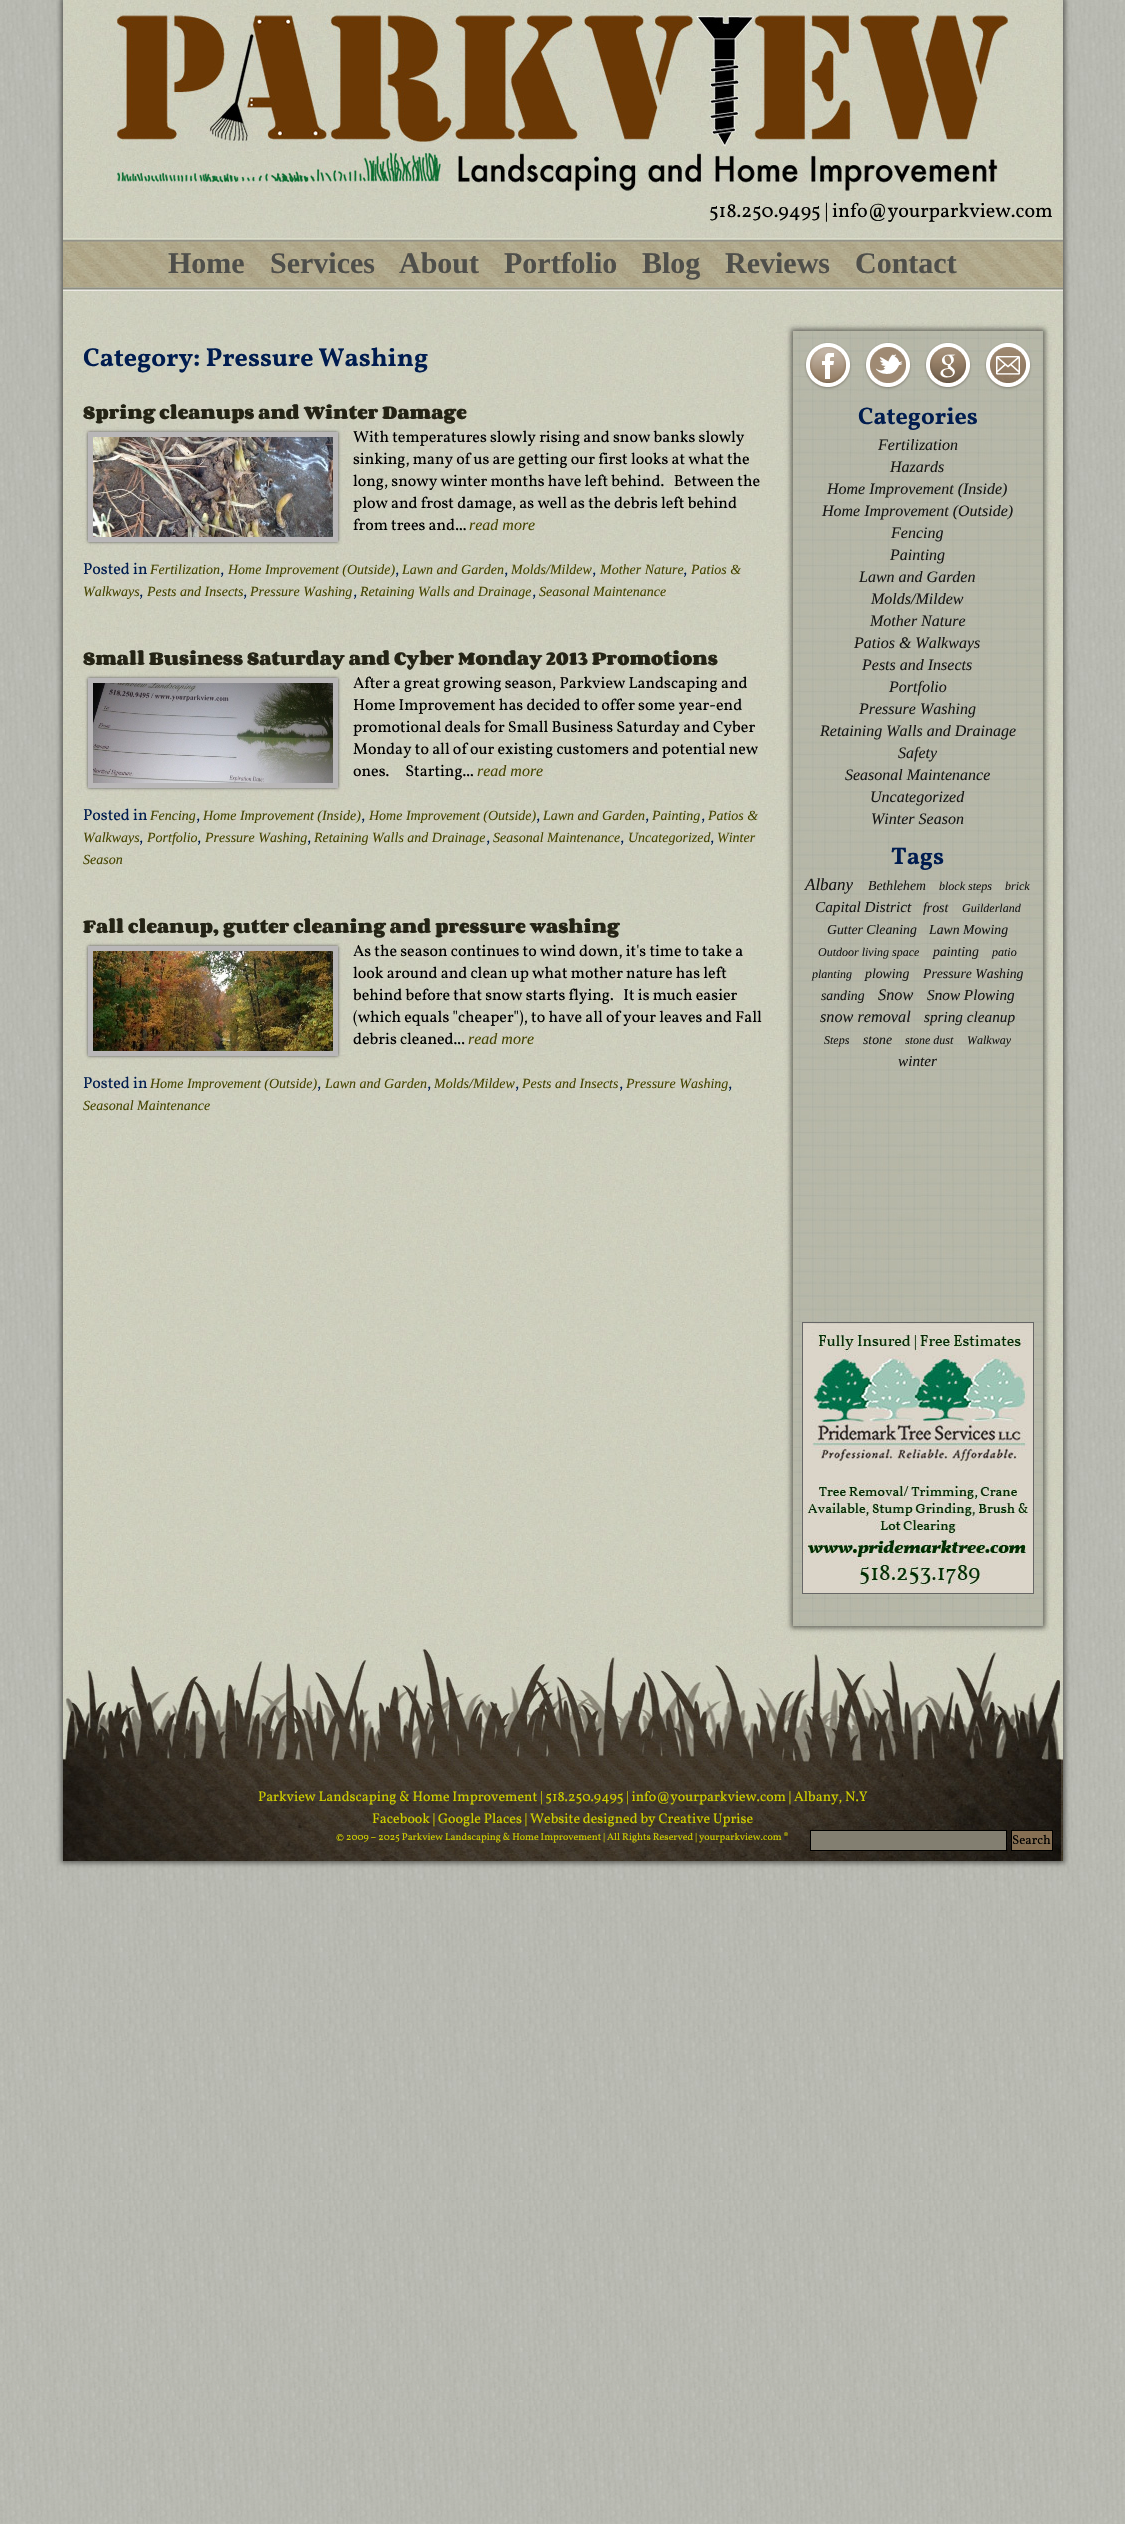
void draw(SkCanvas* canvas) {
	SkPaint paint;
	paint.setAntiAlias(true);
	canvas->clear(0xffffffff);
	canvas->drawImageRect(SkImages::DeferredFromEncodedData(SkData::MakeFromFileName("img1.png")), SkRect::MakeXYWH(0, 0, 1125, 2524), SkSamplingOptions());
	paint.setColor(0x80000000);
	paint.setMaskFilter(SkMaskFilter::MakeBlur(kNormal_SkBlurStyle, 2.5));
	canvas->drawRect(SkRect::MakeXYWH(61, -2, 1004, 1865), paint);
	paint.setMaskFilter(nullptr);
	canvas->drawImageRect(SkImages::DeferredFromEncodedData(SkData::MakeFromFileName("img2.png")), SkRect::MakeXYWH(63, 0, 1000, 1646), SkSamplingOptions());
	canvas->drawImageRect(SkImages::DeferredFromEncodedData(SkData::MakeFromFileName("img3.png")), SkRect::MakeXYWH(117, 15, 891, 176), SkSamplingOptions());
	SkFont f1(fontMgr->matchFamilyStyle("Vollkorn", SkFontStyle::Normal()), 20);
	f1.setSubpixel(true);
	paint.setColor(0xff000000);
	canvas->drawString("518.250.9495 | info@yourparkview.com", 709, 217, f1, paint);
	canvas->drawImageRect(SkImages::DeferredFromEncodedData(SkData::MakeFromFileName("img4.png")), SkRect::MakeXYWH(63, 237, 1000, 54), SkSamplingOptions());
	SkFont f2(fontMgr->matchFamilyStyle("Liberation Serif", SkFontStyle::Bold()), 30);
	f2.setSubpixel(true);
	paint.setColor(0xff4e4e4a);
	canvas->drawString("Home", 168, 273, f2, paint);
	canvas->drawString("Services", 270, 273, f2, paint);
	canvas->drawString("About", 399, 273, f2, paint);
	canvas->drawString("Portfolio", 504, 273, f2, paint);
	canvas->drawString("Blog", 642, 273, f2, paint);
	canvas->drawString("Reviews", 725, 273, f2, paint);
	canvas->drawString("Contact", 855, 273, f2, paint);
	SkFont f3(fontMgr->matchFamilyStyle("Vollkorn", SkFontStyle::Bold()), 26);
	f3.setSubpixel(true);
	paint.setColor(0xff001c4f);
	canvas->drawString("Category: Pressure Washing", 83, 366, f3, paint);
	SkFont f4(fontMgr->matchFamilyStyle("Corben", SkFontStyle::Bold()), 16);
	f4.setSubpixel(true);
	paint.setColor(0xff242315);
	canvas->drawString("Spring cleanups and Winter Damage", 83, 419, f4, paint);
	paint.setColor(0xff555555);
	paint.setMaskFilter(SkMaskFilter::MakeBlur(kNormal_SkBlurStyle, 1.5));
	canvas->drawRect(SkRect::MakeXYWH(88, 432, 250, 110), paint);
	paint.setMaskFilter(nullptr);
	paint.setStroke(true);
	paint.setStrokeWidth(5);
	paint.setColor(0xffb9b7b8);
	canvas->drawRect(SkRect::MakeXYWH(90.5, 434.5, 245, 105), paint);
	canvas->drawImageRect(SkImages::DeferredFromEncodedData(SkData::MakeFromFileName("img5.png")), SkRect::MakeXYWH(93, 437, 240, 100), SkSamplingOptions());
	SkFont f5(fontMgr->matchFamilyStyle("Vollkorn", SkFontStyle::Normal()), 16);
	f5.setSubpixel(true);
	paint.setStroke(false);
	paint.setColor(0xff000000);
	canvas->drawString("With temperatures slowly rising and snow banks slowly", 353, 442, f5, paint);
	canvas->drawString("sinking, many of us are getting our first looks at what the", 353, 464, f5, paint);
	canvas->drawString("long, snowy winter months have left behind.   Between the", 353, 486, f5, paint);
	canvas->drawString("plow and frost damage, as well as the debris left behind", 353, 508, f5, paint);
	canvas->drawString("from trees and...", 353, 530, f5, paint);
	SkFont f6(fontMgr->matchFamilyStyle("Liberation Serif", SkFontStyle::Italic()), 16);
	f6.setSubpixel(true);
	paint.setColor(0xff454401);
	canvas->drawString("read more", 469, 530, f6, paint);
	paint.setColor(0xff001c4f);
	canvas->drawString("Posted in", 83, 574, f5, paint);
	SkFont f7(fontMgr->matchFamilyStyle("Liberation Serif", SkFontStyle::Italic()), 14);
	f7.setSubpixel(true);
	paint.setColor(0xff454401);
	canvas->drawString("Fertilization", 150, 574, f7, paint);
	paint.setColor(0xff001c4f);
	canvas->drawString(",", 220, 574, f5, paint);
	paint.setColor(0xff454401);
	canvas->drawString("Home Improvement (Outside)", 228, 574, f7, paint);
	paint.setColor(0xff001c4f);
	canvas->drawString(",", 395, 574, f5, paint);
	paint.setColor(0xff454401);
	canvas->drawString("Lawn and Garden", 402, 574, f7, paint);
	paint.setColor(0xff001c4f);
	canvas->drawString(",", 504, 574, f5, paint);
	paint.setColor(0xff454401);
	canvas->drawString("Molds/Mildew", 511, 574, f7, paint);
	paint.setColor(0xff001c4f);
	canvas->drawString(",", 592, 574, f5, paint);
	paint.setColor(0xff454401);
	canvas->drawString("Mother Nature", 600, 574, f7, paint);
	paint.setColor(0xff001c4f);
	canvas->drawString(",", 683, 574, f5, paint);
	paint.setColor(0xff454401);
	canvas->drawString("Patios &", 691, 574, f7, paint);
	canvas->drawString("Walkways", 83, 596, f7, paint);
	paint.setColor(0xff001c4f);
	canvas->drawString(",", 139, 596, f5, paint);
	paint.setColor(0xff454401);
	canvas->drawString("Pests and Insects", 147, 596, f7, paint);
	paint.setColor(0xff001c4f);
	canvas->drawString(",", 243, 596, f5, paint);
	paint.setColor(0xff454401);
	canvas->drawString("Pressure Washing", 250, 596, f7, paint);
	paint.setColor(0xff001c4f);
	canvas->drawString(",", 353, 596, f5, paint);
	paint.setColor(0xff454401);
	canvas->drawString("Retaining Walls and Drainage", 360, 596, f7, paint);
	paint.setColor(0xff001c4f);
	canvas->drawString(",", 532, 596, f5, paint);
	paint.setColor(0xff454401);
	canvas->drawString("Seasonal Maintenance", 539, 596, f7, paint);
	paint.setColor(0xff242315);
	canvas->drawString("Small Business Saturday and Cyber Monday 2013 Promotions", 83, 665, f4, paint);
	paint.setColor(0xff555555);
	paint.setMaskFilter(SkMaskFilter::MakeBlur(kNormal_SkBlurStyle, 1.5));
	canvas->drawRect(SkRect::MakeXYWH(88, 678, 250, 110), paint);
	paint.setMaskFilter(nullptr);
	paint.setStroke(true);
	paint.setColor(0xffb9b7b8);
	canvas->drawRect(SkRect::MakeXYWH(90.5, 680.5, 245, 105), paint);
	canvas->drawImageRect(SkImages::DeferredFromEncodedData(SkData::MakeFromFileName("img6.png")), SkRect::MakeXYWH(93, 683, 240, 100), SkSamplingOptions());
	paint.setStroke(false);
	paint.setColor(0xff000000);
	canvas->drawString("After a great growing season, Parkview Landscaping and", 353, 688, f5, paint);
	canvas->drawString("Home Improvement has decided to offer some year-end", 353, 710, f5, paint);
	canvas->drawString("promotional deals for Small Business Saturday and Cyber", 353, 732, f5, paint);
	canvas->drawString("Monday to all of our existing customers and potential new", 353, 754, f5, paint);
	canvas->drawString("ones.     Starting...", 353, 776, f5, paint);
	paint.setColor(0xff454401);
	canvas->drawString("read more", 477, 776, f6, paint);
	paint.setColor(0xff001c4f);
	canvas->drawString("Posted in", 83, 820, f5, paint);
	paint.setColor(0xff454401);
	canvas->drawString("Fencing", 150, 820, f7, paint);
	paint.setColor(0xff001c4f);
	canvas->drawString(",", 196, 820, f5, paint);
	paint.setColor(0xff454401);
	canvas->drawString("Home Improvement (Inside)", 203, 820, f7, paint);
	paint.setColor(0xff001c4f);
	canvas->drawString(",", 361, 820, f5, paint);
	paint.setColor(0xff454401);
	canvas->drawString("Home Improvement (Outside)", 369, 820, f7, paint);
	paint.setColor(0xff001c4f);
	canvas->drawString(",", 536, 820, f5, paint);
	paint.setColor(0xff454401);
	canvas->drawString("Lawn and Garden", 543, 820, f7, paint);
	paint.setColor(0xff001c4f);
	canvas->drawString(",", 645, 820, f5, paint);
	paint.setColor(0xff454401);
	canvas->drawString("Painting", 652, 820, f7, paint);
	paint.setColor(0xff001c4f);
	canvas->drawString(",", 701, 820, f5, paint);
	paint.setColor(0xff454401);
	canvas->drawString("Patios &", 708, 820, f7, paint);
	canvas->drawString("Walkways", 83, 842, f7, paint);
	paint.setColor(0xff001c4f);
	canvas->drawString(",", 139, 842, f5, paint);
	paint.setColor(0xff454401);
	canvas->drawString("Portfolio", 147, 842, f7, paint);
	paint.setColor(0xff001c4f);
	canvas->drawString(",", 197, 842, f5, paint);
	paint.setColor(0xff454401);
	canvas->drawString("Pressure Washing", 205, 842, f7, paint);
	paint.setColor(0xff001c4f);
	canvas->drawString(",", 307, 842, f5, paint);
	paint.setColor(0xff454401);
	canvas->drawString("Retaining Walls and Drainage", 314, 842, f7, paint);
	paint.setColor(0xff001c4f);
	canvas->drawString(",", 486, 842, f5, paint);
	paint.setColor(0xff454401);
	canvas->drawString("Seasonal Maintenance", 493, 842, f7, paint);
	paint.setColor(0xff001c4f);
	canvas->drawString(",", 620, 842, f5, paint);
	paint.setColor(0xff454401);
	canvas->drawString("Uncategorized", 628, 842, f7, paint);
	paint.setColor(0xff001c4f);
	canvas->drawString(",", 710, 842, f5, paint);
	paint.setColor(0xff454401);
	canvas->drawString("Winter", 717, 842, f7, paint);
	canvas->drawString("Season", 83, 864, f7, paint);
	paint.setColor(0xff242315);
	canvas->drawString("Fall cleanup, gutter cleaning and pressure washing", 83, 933, f4, paint);
	paint.setColor(0xff555555);
	paint.setMaskFilter(SkMaskFilter::MakeBlur(kNormal_SkBlurStyle, 1.5));
	canvas->drawRect(SkRect::MakeXYWH(88, 946, 250, 110), paint);
	paint.setMaskFilter(nullptr);
	paint.setStroke(true);
	paint.setColor(0xffb9b7b8);
	canvas->drawRect(SkRect::MakeXYWH(90.5, 948.5, 245, 105), paint);
	canvas->drawImageRect(SkImages::DeferredFromEncodedData(SkData::MakeFromFileName("img7.png")), SkRect::MakeXYWH(93, 951, 240, 100), SkSamplingOptions());
	paint.setStroke(false);
	paint.setColor(0xff000000);
	canvas->drawString("As the season continues to wind down, it's time to take a", 353, 956, f5, paint);
	canvas->drawString("look around and clean up what mother nature has left", 353, 978, f5, paint);
	canvas->drawString("behind before that snow starts flying.   It is much easier", 353, 1000, f5, paint);
	canvas->drawString("(which equals \"cheaper\"), to have all of your leaves and Fall", 353, 1022, f5, paint);
	canvas->drawString("debris cleaned...", 353, 1044, f5, paint);
	paint.setColor(0xff454401);
	canvas->drawString("read more", 468, 1044, f6, paint);
	paint.setColor(0xff001c4f);
	canvas->drawString("Posted in", 83, 1088, f5, paint);
	paint.setColor(0xff454401);
	canvas->drawString("Home Improvement (Outside)", 150, 1088, f7, paint);
	paint.setColor(0xff001c4f);
	canvas->drawString(",", 317, 1088, f5, paint);
	paint.setColor(0xff454401);
	canvas->drawString("Lawn and Garden", 325, 1088, f7, paint);
	paint.setColor(0xff001c4f);
	canvas->drawString(",", 427, 1088, f5, paint);
	paint.setColor(0xff454401);
	canvas->drawString("Molds/Mildew", 434, 1088, f7, paint);
	paint.setColor(0xff001c4f);
	canvas->drawString(",", 515, 1088, f5, paint);
	paint.setColor(0xff454401);
	canvas->drawString("Pests and Insects", 522, 1088, f7, paint);
	paint.setColor(0xff001c4f);
	canvas->drawString(",", 619, 1088, f5, paint);
	paint.setColor(0xff454401);
	canvas->drawString("Pressure Washing", 626, 1088, f7, paint);
	paint.setColor(0xff001c4f);
	canvas->drawString(",", 728, 1088, f5, paint);
	paint.setColor(0xff454401);
	canvas->drawString("Seasonal Maintenance", 83, 1110, f7, paint);
	paint.setColor(0x80000000);
	paint.setMaskFilter(SkMaskFilter::MakeBlur(kNormal_SkBlurStyle, 2.5));
	canvas->drawRect(SkRect::MakeXYWH(791, 329, 254, 1299), paint);
	paint.setMaskFilter(nullptr);
	canvas->drawImageRect(SkImages::DeferredFromEncodedData(SkData::MakeFromFileName("img8.png")), SkRect::MakeXYWH(793, 331, 250, 1295), SkSamplingOptions());
	canvas->drawImageRect(SkImages::DeferredFromEncodedData(SkData::MakeFromFileName("img9.png")), SkRect::MakeXYWH(804, 342, 48, 48), SkSamplingOptions());
	canvas->drawImageRect(SkImages::DeferredFromEncodedData(SkData::MakeFromFileName("img10.png")), SkRect::MakeXYWH(864, 342, 48, 48), SkSamplingOptions());
	canvas->drawImageRect(SkImages::DeferredFromEncodedData(SkData::MakeFromFileName("img11.png")), SkRect::MakeXYWH(924, 342, 48, 48), SkSamplingOptions());
	canvas->drawImageRect(SkImages::DeferredFromEncodedData(SkData::MakeFromFileName("img12.png")), SkRect::MakeXYWH(984, 342, 48, 48), SkSamplingOptions());
	SkFont f8(fontMgr->matchFamilyStyle("Vollkorn", SkFontStyle::Bold()), 24);
	f8.setSubpixel(true);
	paint.setColor(0xff001c4f);
	canvas->drawString("Categories", 858, 424, f8, paint);
	paint.setColor(0xff171715);
	canvas->drawString("Fertilization", 878, 450, f6, paint);
	canvas->drawString("Hazards", 890, 472, f6, paint);
	canvas->drawString("Home Improvement (Inside)", 827, 494, f6, paint);
	canvas->drawString("Home Improvement (Outside)", 822, 516, f6, paint);
	canvas->drawString("Fencing", 891, 538, f6, paint);
	canvas->drawString("Painting", 890, 560, f6, paint);
	canvas->drawString("Lawn and Garden", 859, 582, f6, paint);
	canvas->drawString("Molds/Mildew", 871, 604, f6, paint);
	canvas->drawString("Mother Nature", 870, 626, f6, paint);
	canvas->drawString("Patios & Walkways", 854, 648, f6, paint);
	canvas->drawString("Pests and Insects", 862, 670, f6, paint);
	canvas->drawString("Portfolio", 889, 692, f6, paint);
	canvas->drawString("Pressure Washing", 859, 714, f6, paint);
	canvas->drawString("Retaining Walls and Drainage", 820, 736, f6, paint);
	canvas->drawString("Safety", 898, 758, f6, paint);
	canvas->drawString("Seasonal Maintenance", 845, 780, f6, paint);
	canvas->drawString("Uncategorized", 870, 802, f6, paint);
	canvas->drawString("Winter Season", 871, 824, f6, paint);
	paint.setColor(0xff001c4f);
	canvas->drawString("Tags", 891, 864, f8, paint);
	SkFont f9(fontMgr->matchFamilyStyle("Liberation Serif", SkFontStyle::Italic()), 17);
	f9.setSubpixel(true);
	paint.setColor(0xff171715);
	canvas->drawString("Albany", 805, 890, f9, paint);
	SkFont f10(fontMgr->matchFamilyStyle("Liberation Serif", SkFontStyle::Italic()), 13.75);
	f10.setSubpixel(true);
	canvas->drawString("Bethlehem", 868, 890, f10, paint);
	SkFont f11(fontMgr->matchFamilyStyle("Liberation Serif", SkFontStyle::Italic()), 12);
	f11.setSubpixel(true);
	canvas->drawString("block steps", 939, 890, f11, paint);
	canvas->drawString("brick", 1005, 890, f11, paint);
	SkFont f12(fontMgr->matchFamilyStyle("Liberation Serif", SkFontStyle::Italic()), 15.25);
	f12.setSubpixel(true);
	canvas->drawString("Capital District", 815, 912, f12, paint);
	canvas->drawString("frost", 923, 912, f10, paint);
	canvas->drawString("Guilderland", 962, 912, f11, paint);
	canvas->drawString("Gutter Cleaning", 827, 934, f10, paint);
	canvas->drawString("Lawn Mowing", 929, 934, f10, paint);
	canvas->drawString("Outdoor living space", 818, 956, f11, paint);
	canvas->drawString("painting", 933, 956, f10, paint);
	canvas->drawString("patio", 992, 956, f11, paint);
	canvas->drawString("planting", 812, 978, f11, paint);
	canvas->drawString("plowing", 865, 978, f10, paint);
	canvas->drawString("Pressure Washing", 923, 978, f10, paint);
	canvas->drawString("sanding", 821, 1000, f10, paint);
	SkFont f13(fontMgr->matchFamilyStyle("Liberation Serif", SkFontStyle::Italic()), 16.25);
	f13.setSubpixel(true);
	canvas->drawString("Snow", 878, 1000, f13, paint);
	canvas->drawString("Snow Plowing", 927, 1000, f12, paint);
	canvas->drawString("snow removal", 820, 1022, f13, paint);
	canvas->drawString("spring cleanup", 924, 1022, f12, paint);
	canvas->drawString("Steps", 824, 1044, f11, paint);
	canvas->drawString("stone", 863, 1044, f10, paint);
	canvas->drawString("stone dust", 905, 1044, f11, paint);
	canvas->drawString("Walkway", 967, 1044, f11, paint);
	canvas->drawString("winter", 898, 1066, f12, paint);
	paint.setStroke(true);
	paint.setStrokeWidth(1);
	paint.setColor(0xff666666);
	canvas->drawRect(SkRect::MakeXYWH(802.5, 1322.5, 231, 271), paint);
	canvas->drawImageRect(SkImages::DeferredFromEncodedData(SkData::MakeFromFileName("img13.png")), SkRect::MakeXYWH(803, 1323, 230, 270), SkSamplingOptions());
	canvas->drawImageRect(SkImages::DeferredFromEncodedData(SkData::MakeFromFileName("img14.png")), SkRect::MakeXYWH(63, 1646, 1000, 215), SkSamplingOptions());
	SkFont f14(fontMgr->matchFamilyStyle("Vollkorn", SkFontStyle::Normal()), 14);
	f14.setSubpixel(true);
	paint.setStroke(false);
	paint.setColor(0xffcccc00);
	canvas->drawString("Parkview Landscaping & Home Improvement | 518.250.9495 | info@yourparkview.com | Albany, N.Y", 258, 1801, f14, paint);
	canvas->drawString("Facebook | Google Places | Website designed by Creative Uprise", 372, 1823, f14, paint);
	SkFont f15(fontMgr->matchFamilyStyle("Vollkorn", SkFontStyle::Normal()), 10);
	f15.setSubpixel(true);
	canvas->drawString("© 2009 – 2025 Parkview Landscaping & Home Improvement | All Rights Reserved | yourparkview.com ®", 336, 1840, f15, paint);
	paint.setColor(0xff837f71);
	canvas->drawRect(SkRect::MakeXYWH(810.5, 1830.5, 196, 20), paint);
	paint.setStroke(true);
	paint.setColor(0xff000000);
	canvas->drawRect(SkRect::MakeXYWH(810.5, 1830.5, 196, 20), paint);
	paint.setStroke(false);
	paint.setColor(0xff866f53);
	canvas->drawRect(SkRect::MakeXYWH(1011.5, 1830.5, 41, 20), paint);
	paint.setStroke(true);
	paint.setColor(0xff000000);
	canvas->drawRect(SkRect::MakeXYWH(1011.5, 1830.5, 41, 20), paint);
	SkFont f16(fontMgr->matchFamilyStyle("Vollkorn", SkFontStyle::Normal()), 13);
	f16.setSubpixel(true);
	paint.setStroke(false);
	canvas->drawString("Search", 1012, 1844, f16, paint);
}
